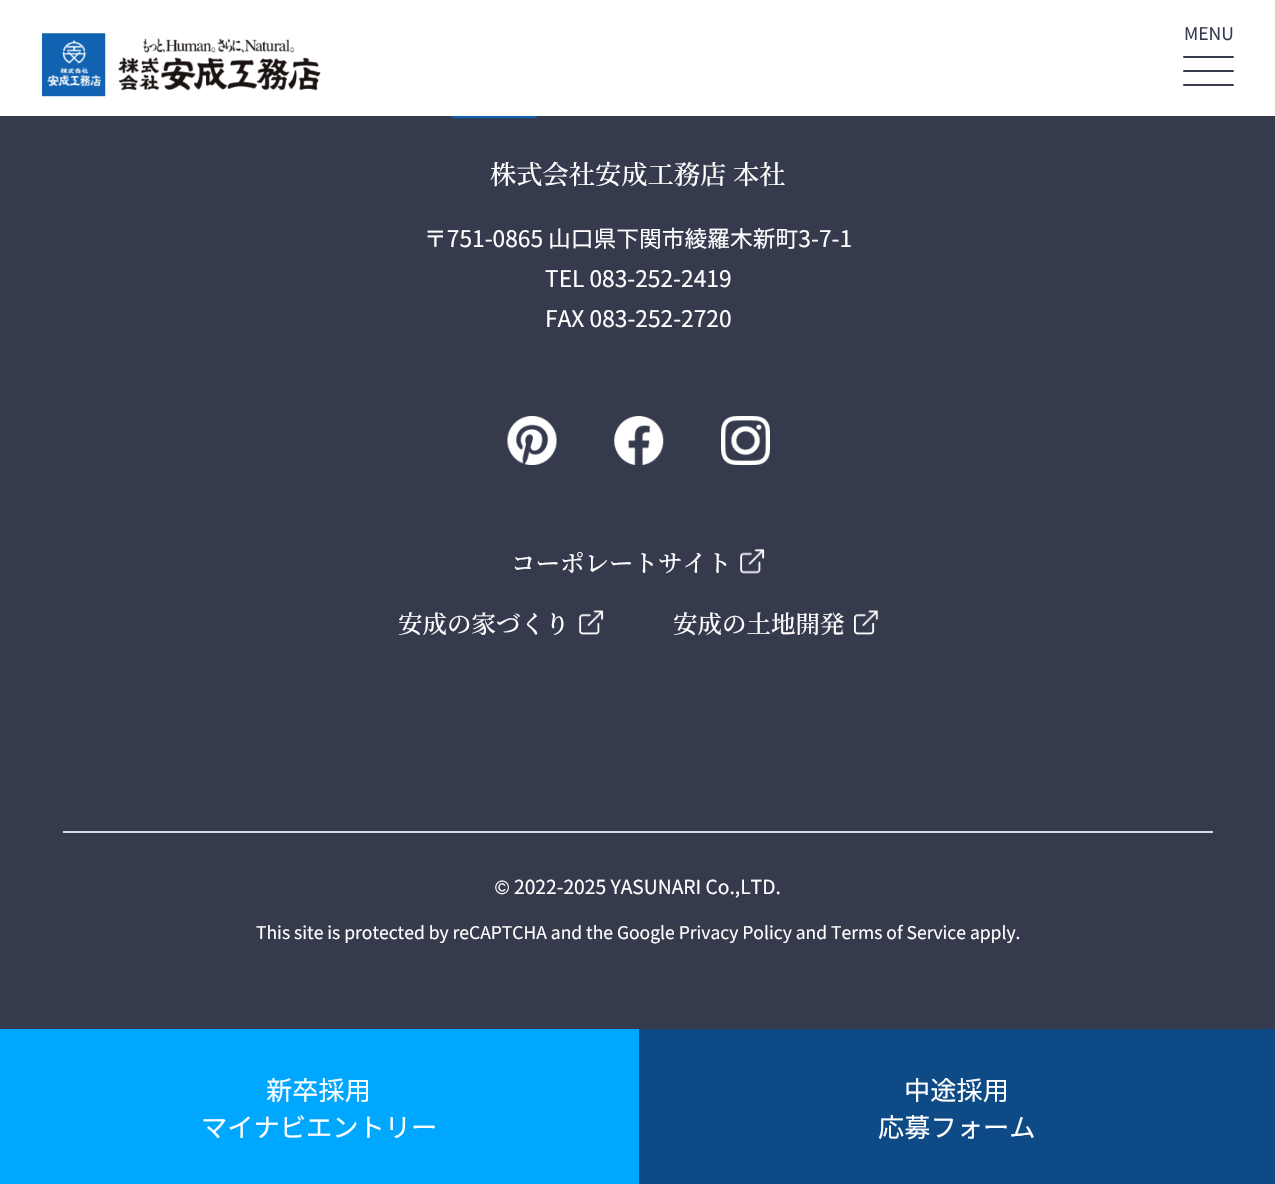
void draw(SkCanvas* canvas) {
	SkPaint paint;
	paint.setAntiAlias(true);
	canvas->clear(0xff363a4d);
	paint.setColor(0xffffffff);
	canvas->drawRect(SkRect::MakeXYWH(0, 0, 1275, 116), paint);
	canvas->drawImageRect(SkImages::DeferredFromEncodedData(SkData::MakeFromFileName("img1.png")), SkRect::MakeXYWH(42, 33, 279, 64), SkSamplingOptions());
	SkFont f1(fontMgr->matchFamilyStyle("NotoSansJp", SkFontStyle::Normal()), 17.5);
	f1.setSubpixel(true);
	paint.setColor(0xff363a4d);
	canvas->drawString("MENU", 1184, 40, f1, paint);
	canvas->drawRoundRect(SkRect::MakeXYWH(1183, 56, 51, 2), 1, 1, paint);
	canvas->drawRoundRect(SkRect::MakeXYWH(1183, 70, 51, 2), 1, 1, paint);
	canvas->drawRoundRect(SkRect::MakeXYWH(1183, 84, 51, 2), 1, 1, paint);
	paint.setColor(0xff00a7ff);
	canvas->drawRect(SkRect::MakeXYWH(0, 1029, 639, 155), paint);
	SkFont f2(fontMgr->matchFamilyStyle("NotoSansJp", SkFontStyle::Normal()), 26.25);
	f2.setSubpixel(true);
	paint.setColor(0xffffffff);
	canvas->drawString("新卒採用", 266, 1100, f2, paint);
	canvas->drawString("マイナビエントリー", 201, 1137, f2, paint);
	paint.setColor(0xff0e4b86);
	canvas->drawRect(SkRect::MakeXYWH(639, 1029, 636, 155), paint);
	paint.setColor(0xffffffff);
	canvas->drawString("中途採用", 904, 1100, f2, paint);
	canvas->drawString("応募フォーム", 878, 1137, f2, paint);
	canvas->drawImageRect(SkImages::DeferredFromEncodedData(SkData::MakeFromFileName("img2.png")), SkRect::MakeXYWH(451, 116, 87, 3), SkSamplingOptions());
	SkFont f3(fontMgr->matchFamilyStyle("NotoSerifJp", SkFontStyle(500, SkFontStyle::kNormal_Width, SkFontStyle::kUpright_Slant)), 26.25);
	f3.setSubpixel(true);
	canvas->drawString("株式会社安成工務店 本社", 490, 184, f3, paint);
	SkFont f4(fontMgr->matchFamilyStyle("NotoSansJp", SkFontStyle::Normal()), 22.75);
	f4.setSubpixel(true);
	canvas->drawString("〒751-0865 山口県下関市綾羅木新町3-7-1", 424, 247, f4, paint);
	canvas->drawString("TEL 083-252-2419", 545, 287, f4, paint);
	canvas->drawString("FAX 083-252-2720", 545, 327, f4, paint);
	canvas->drawImageRect(SkImages::DeferredFromEncodedData(SkData::MakeFromFileName("img3.png")), SkRect::MakeXYWH(507, 416, 50, 49), SkSamplingOptions());
	canvas->drawImageRect(SkImages::DeferredFromEncodedData(SkData::MakeFromFileName("img4.png")), SkRect::MakeXYWH(614, 416, 50, 49), SkSamplingOptions());
	canvas->drawImageRect(SkImages::DeferredFromEncodedData(SkData::MakeFromFileName("img5.png")), SkRect::MakeXYWH(721, 416, 49, 49), SkSamplingOptions());
	SkFont f5(fontMgr->matchFamilyStyle("NotoSerifJp", SkFontStyle(500, SkFontStyle::kNormal_Width, SkFontStyle::kUpright_Slant)), 24.5);
	f5.setSubpixel(true);
	canvas->drawString("コーポレートサイト", 511, 572, f5, paint);
	canvas->drawImageRect(SkImages::DeferredFromEncodedData(SkData::MakeFromFileName("img6.png")), SkRect::MakeXYWH(740, 549, 25, 25), SkSamplingOptions());
	canvas->drawString("安成の家づくり", 398, 633, f5, paint);
	canvas->drawImageRect(SkImages::DeferredFromEncodedData(SkData::MakeFromFileName("img7.png")), SkRect::MakeXYWH(579, 610, 25, 25), SkSamplingOptions());
	canvas->drawString("安成の土地開発", 673, 633, f5, paint);
	canvas->drawImageRect(SkImages::DeferredFromEncodedData(SkData::MakeFromFileName("img8.png")), SkRect::MakeXYWH(854, 610, 25, 25), SkSamplingOptions());
	paint.setColor(0xffd7dce2);
	canvas->drawRect(SkRect::MakeXYWH(63, 831, 1150, 2), paint);
	SkFont f6(fontMgr->matchFamilyStyle("Liberation Sans", SkFontStyle::Normal()), 19.25);
	f6.setSubpixel(true);
	paint.setColor(0xffffffff);
	canvas->drawString("©", 495, 894, f6, paint);
	SkFont f7(fontMgr->matchFamilyStyle("NotoSansJp", SkFontStyle::Normal()), 19.25);
	f7.setSubpixel(true);
	canvas->drawString("2022-2025 YASUNARI Co.,LTD.", 514, 894, f7, paint);
	canvas->drawString("This site is protected by reCAPTCHA and the Google Privacy Policy and Terms of Service apply.", 256, 939, f1, paint);
}
